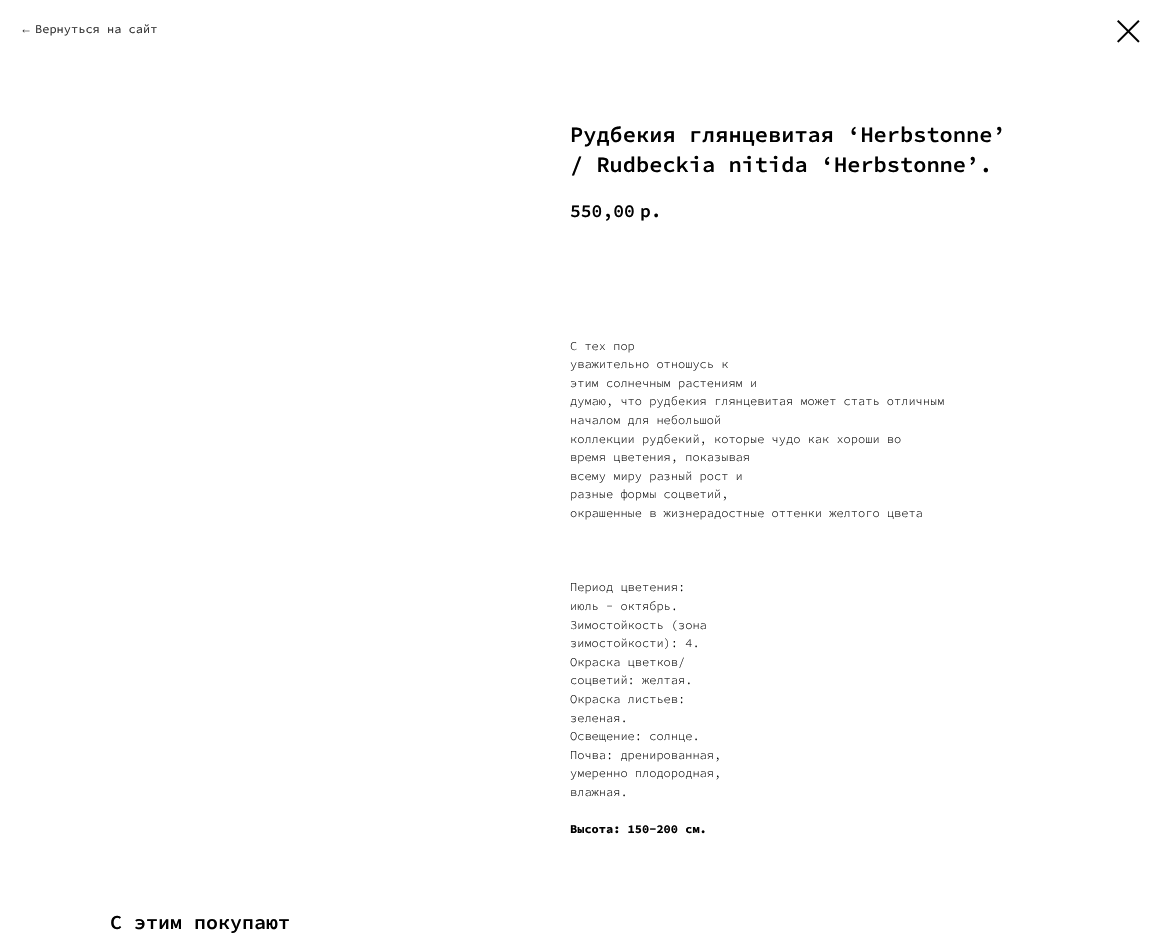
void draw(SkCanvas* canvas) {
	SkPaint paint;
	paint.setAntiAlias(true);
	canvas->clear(0xffffffff);
	SkFont f1(fontMgr->matchFamilyStyle("Liberation Sans", SkFontStyle::Normal()), 12);
	f1.setSubpixel(true);
	paint.setColor(0xff333333);
	canvas->drawString("←", 20, 33, f1, paint);
	SkFont f2(fontMgr->matchFamilyStyle("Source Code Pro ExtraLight", SkFontStyle::Normal()), 12);
	f2.setSubpixel(true);
	canvas->drawString("Вернуться на сайт", 35, 33, f2, paint);
	canvas->drawImageRect(SkImages::DeferredFromEncodedData(SkData::MakeFromFileName("img1.png")), SkRect::MakeXYWH(1117, 20, 23, 23), SkSamplingOptions());
	SkFont f3(fontMgr->matchFamilyStyle("Source Code Pro ExtraLight", SkFontStyle(600, SkFontStyle::kNormal_Width, SkFontStyle::kUpright_Slant)), 22);
	f3.setSubpixel(true);
	paint.setColor(0xff000000);
	canvas->drawString("Рудбекия глянцевитая ‘Herbstonne’", 570, 142, f3, paint);
	canvas->drawString("/ Rudbeckia nitida ‘Herbstonne’.", 570, 172, f3, paint);
	SkFont f4(fontMgr->matchFamilyStyle("Source Code Pro ExtraLight", SkFontStyle(600, SkFontStyle::kNormal_Width, SkFontStyle::kUpright_Slant)), 18);
	f4.setSubpixel(true);
	canvas->drawString("550,00", 570, 217, f4, paint);
	canvas->drawString("р.", 640, 217, f4, paint);
	SkFont f5(fontMgr->matchFamilyStyle("Source Code Pro ExtraLight", SkFontStyle(300, SkFontStyle::kNormal_Width, SkFontStyle::kUpright_Slant)), 12);
	f5.setSubpixel(true);
	canvas->drawString("С тех пор", 570, 350, f5, paint);
	canvas->drawString("уважительно отношусь к", 570, 368, f5, paint);
	canvas->drawString("этим солнечным растениям и", 570, 387, f5, paint);
	canvas->drawString("думаю, что рудбекия глянцевитая может стать отличным", 570, 405, f5, paint);
	canvas->drawString("началом для небольшой", 570, 424, f5, paint);
	canvas->drawString("коллекции рудбекий, которые чудо как хороши во", 570, 443, f5, paint);
	canvas->drawString("время цветения, показывая", 570, 461, f5, paint);
	canvas->drawString("всему миру разный рост и", 570, 480, f5, paint);
	canvas->drawString("разные формы соцветий,", 570, 498, f5, paint);
	canvas->drawString("окрашенные в жизнерадостные оттенки желтого цвета", 570, 517, f5, paint);
	canvas->drawString("Период цветения:", 570, 591, f5, paint);
	canvas->drawString("июль - октябрь.", 570, 610, f5, paint);
	canvas->drawString("Зимостойкость (зона", 570, 629, f5, paint);
	canvas->drawString("зимостойкости): 4.", 570, 647, f5, paint);
	canvas->drawString("Окраска цветков/", 570, 666, f5, paint);
	canvas->drawString("соцветий: желтая.", 570, 684, f5, paint);
	canvas->drawString("Окраска листьев:", 570, 703, f5, paint);
	canvas->drawString("зеленая.", 570, 722, f5, paint);
	canvas->drawString("Освещение: солнце.", 570, 740, f5, paint);
	canvas->drawString("Почва: дренированная,", 570, 759, f5, paint);
	canvas->drawString("умеренно плодородная,", 570, 777, f5, paint);
	canvas->drawString("влажная.", 570, 796, f5, paint);
	SkFont f6(fontMgr->matchFamilyStyle("Source Code Pro ExtraLight", SkFontStyle::Bold()), 12);
	f6.setSubpixel(true);
	canvas->drawString("Высота: 150-200 см.", 570, 833, f6, paint);
	SkFont f7(fontMgr->matchFamilyStyle("Source Code Pro ExtraLight", SkFontStyle(600, SkFontStyle::kNormal_Width, SkFontStyle::kUpright_Slant)), 20);
	f7.setSubpixel(true);
	canvas->drawString("С этим покупают", 110, 929, f7, paint);
}
